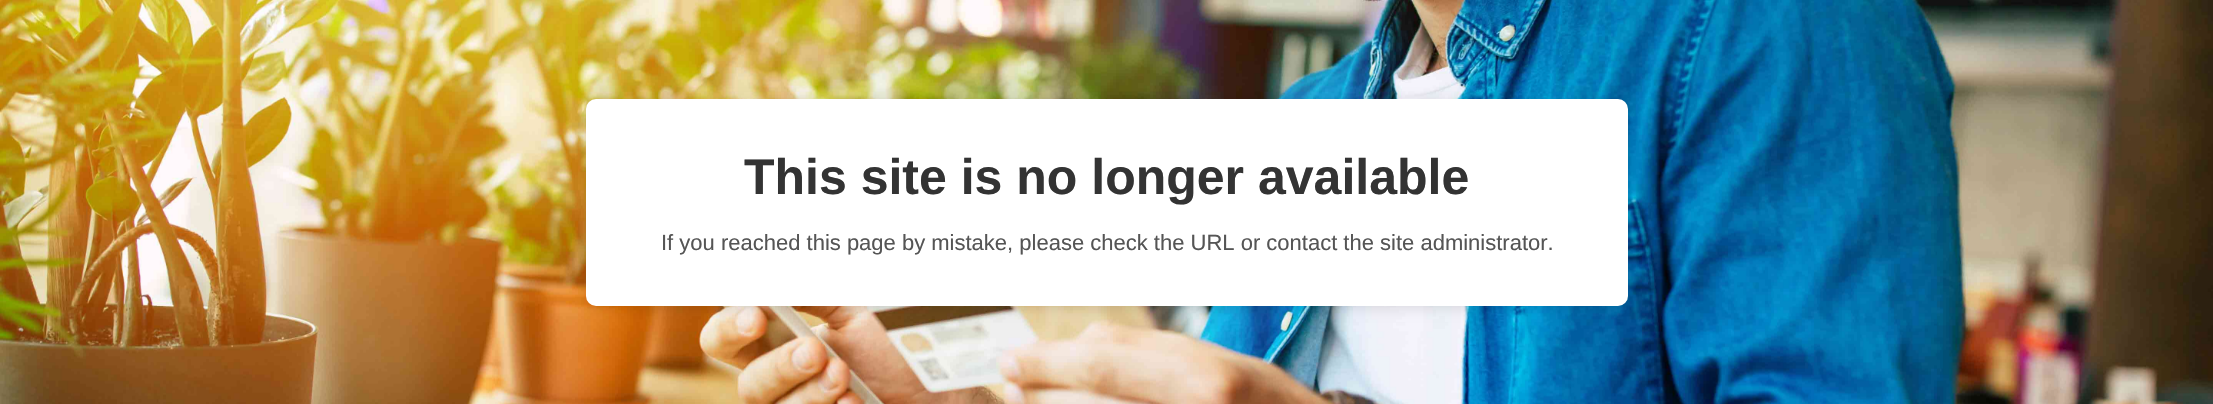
void draw(SkCanvas* canvas) {
	SkPaint paint;
	paint.setAntiAlias(true);
	canvas->clear(0xffffffff);
	canvas->drawImageRect(SkImages::DeferredFromEncodedData(SkData::MakeFromFileName("img1.png")), SkRect::MakeXYWH(0, 0, 2213, 404), SkSamplingOptions());
	paint.setColor(0x1a000000);
	paint.setMaskFilter(SkMaskFilter::MakeBlur(kNormal_SkBlurStyle, 6));
	canvas->drawRoundRect(SkRect::MakeXYWH(586, 101, 1042, 208), 10, 10, paint);
	paint.setMaskFilter(nullptr);
	paint.setColor(0xffffffff);
	canvas->drawRoundRect(SkRect::MakeXYWH(586, 99, 1042, 207), 10, 10, paint);
	SkFont f1(fontMgr->matchFamilyStyle("Liberation Sans", SkFontStyle::Bold()), 50);
	f1.setSubpixel(true);
	paint.setColor(0xff333333);
	canvas->drawString("This site is no longer available", 744, 194, f1, paint);
	SkFont f2(fontMgr->matchFamilyStyle("Liberation Sans", SkFontStyle::Normal()), 22);
	f2.setSubpixel(true);
	paint.setColor(0xff555555);
	canvas->drawString("If you reached this page by mistake, please check the URL or contact the site administrator.", 661, 250, f2, paint);
}
